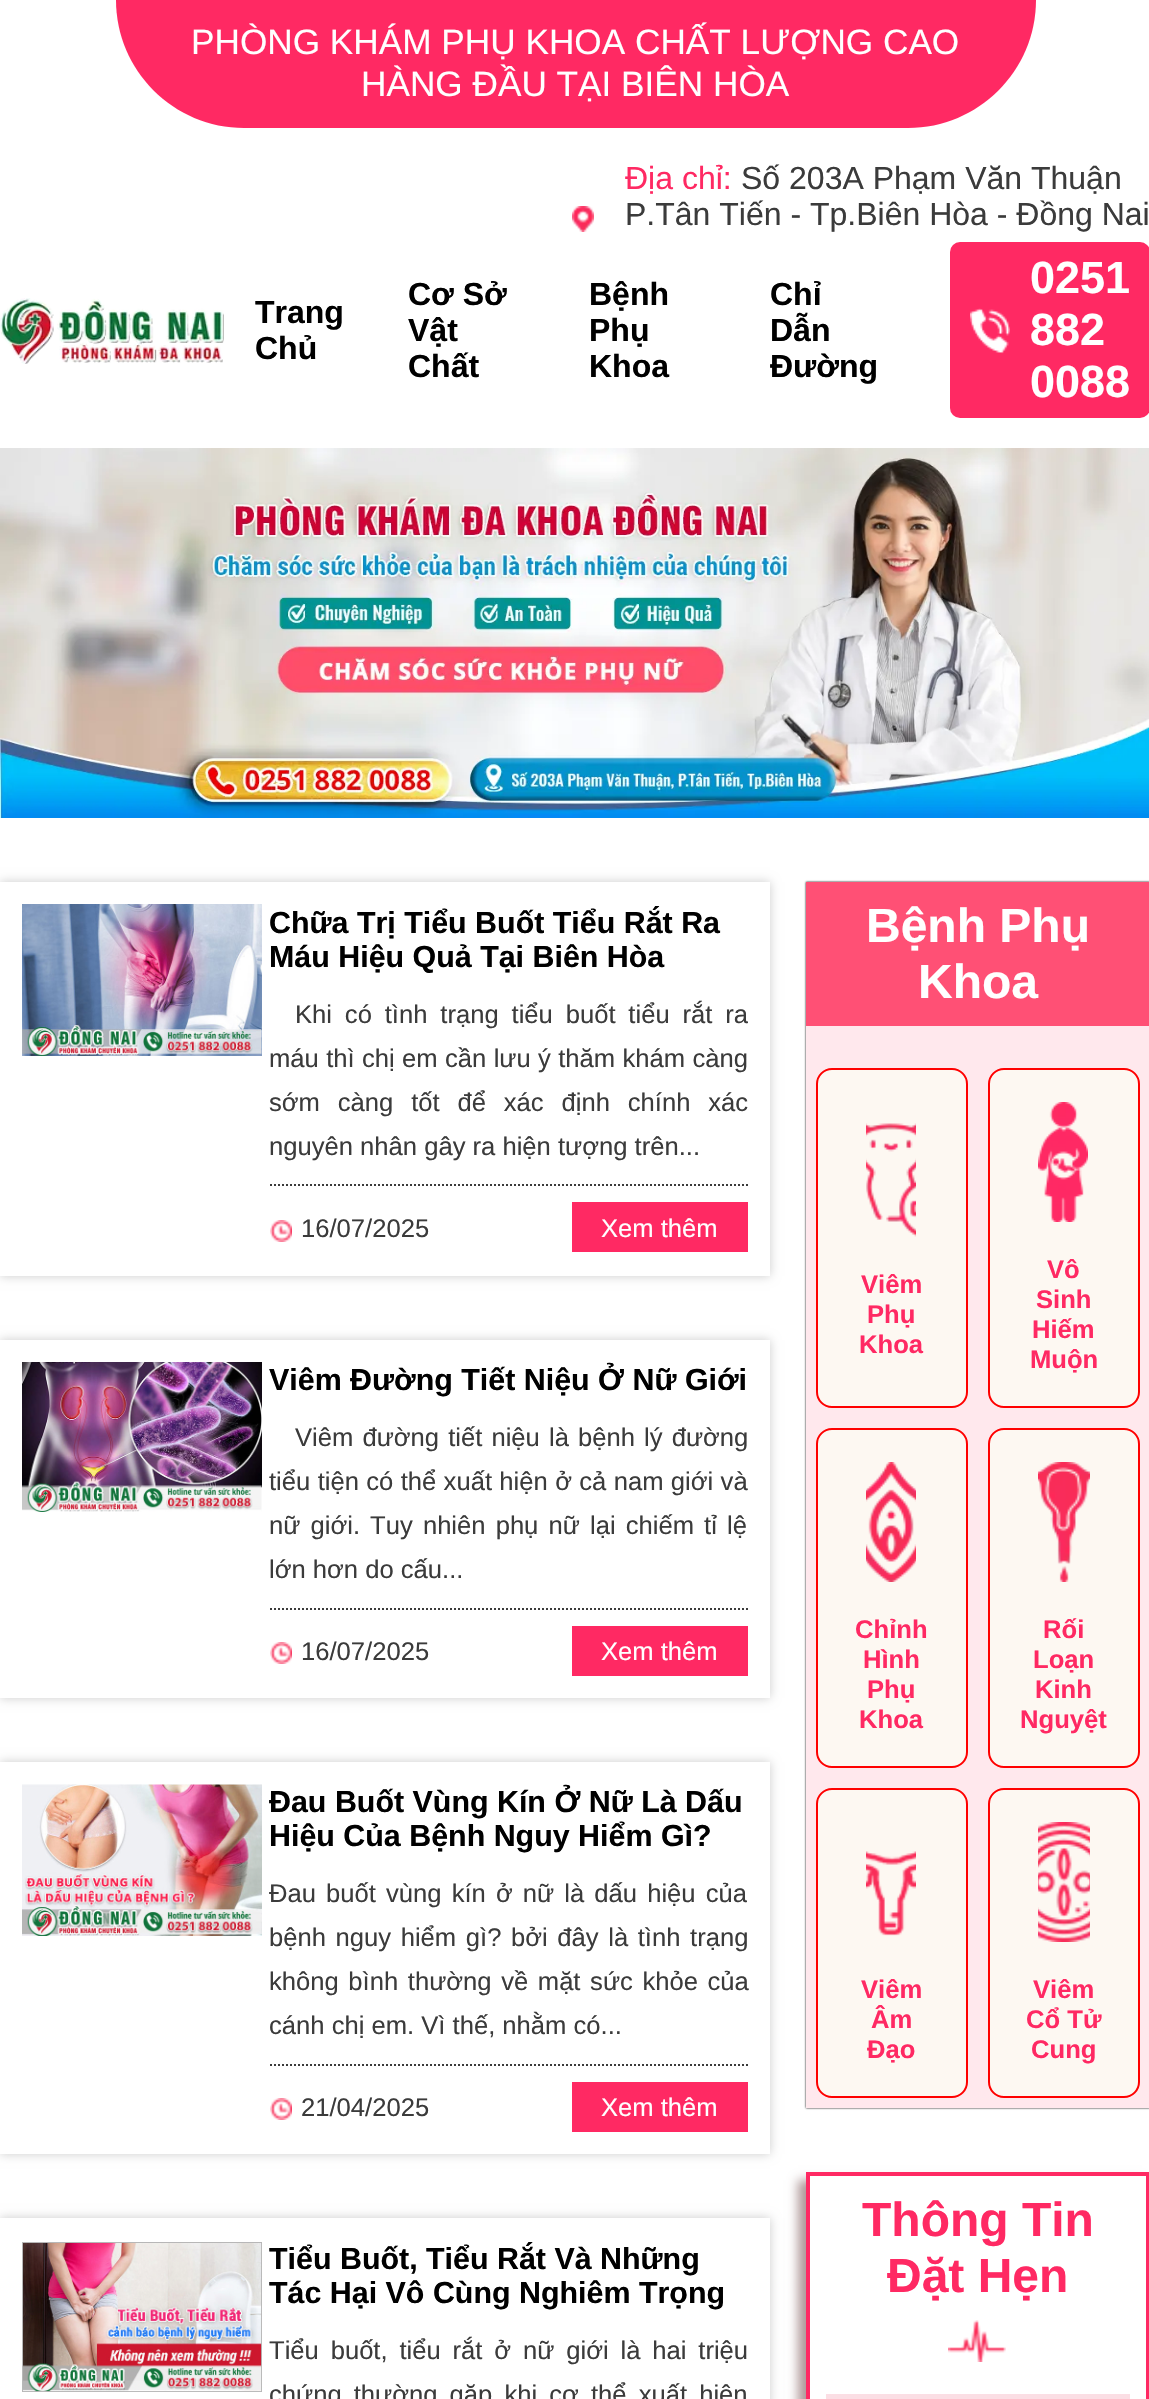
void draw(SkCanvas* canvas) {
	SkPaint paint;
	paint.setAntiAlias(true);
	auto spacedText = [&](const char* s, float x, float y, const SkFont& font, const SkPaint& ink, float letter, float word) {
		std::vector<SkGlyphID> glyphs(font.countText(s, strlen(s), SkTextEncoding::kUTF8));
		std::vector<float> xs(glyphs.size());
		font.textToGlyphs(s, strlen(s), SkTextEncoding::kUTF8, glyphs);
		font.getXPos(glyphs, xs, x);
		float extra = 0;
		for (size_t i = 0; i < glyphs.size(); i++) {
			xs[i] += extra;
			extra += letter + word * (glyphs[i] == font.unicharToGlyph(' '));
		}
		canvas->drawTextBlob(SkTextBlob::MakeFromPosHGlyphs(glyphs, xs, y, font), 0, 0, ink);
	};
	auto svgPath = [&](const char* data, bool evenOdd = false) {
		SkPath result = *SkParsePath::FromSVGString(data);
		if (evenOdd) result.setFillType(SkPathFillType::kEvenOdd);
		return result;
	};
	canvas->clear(0xffffffff);
	paint.setColor(0xffff2963);
	canvas->drawPath(svgPath("M116 0H1036C1036 70.5 978.5 128 908 128H244C173.5 128 116 70.5 116 0Z"), paint);
	SkFont f1(fontMgr->matchFamilyStyle("Liberation Sans", SkFontStyle::Normal()), 35.2);
	f1.setSubpixel(true);
	paint.setColor(0xffffffff);
	canvas->drawString("PHÒNG KHÁM PHỤ KHOA CHẤT LƯỢNG CAO", 191, 54, f1, paint);
	canvas->drawString("HÀNG ĐẦU TẠI BIÊN HÒA", 361, 96, f1, paint);
	canvas->drawImageRect(SkImages::DeferredFromEncodedData(SkData::MakeFromFileName("img1.png")), SkRect::MakeXYWH(572, 206, 22, 26), SkSamplingOptions());
	SkFont f2(fontMgr->matchFamilyStyle("Liberation Sans", SkFontStyle::Normal()), 32);
	f2.setSubpixel(true);
	paint.setColor(0xffff2963);
	canvas->drawString("Địa chỉ:", 625, 189, f2, paint);
	paint.setColor(0xff3b3b3b);
	canvas->drawString("Số 203A Phạm Văn Thuận", 741, 189, f2, paint);
	canvas->drawString("P.Tân Tiến - Tp.Biên Hòa - Đồng Nai", 625, 225, f2, paint);
	canvas->drawImageRect(SkImages::DeferredFromEncodedData(SkData::MakeFromFileName("img2.png")), SkRect::MakeXYWH(0, 298, 224, 66), SkSamplingOptions());
	SkFont f3(fontMgr->matchFamilyStyle("Liberation Sans", SkFontStyle::Bold()), 32);
	f3.setSubpixel(true);
	paint.setColor(0xff000000);
	canvas->drawString("Trang", 255, 323, f3, paint);
	canvas->drawString("Chủ", 255, 359, f3, paint);
	canvas->drawString("Cơ Sở", 408, 305, f3, paint);
	canvas->drawString("Vật", 408, 341, f3, paint);
	canvas->drawString("Chất", 408, 377, f3, paint);
	canvas->drawString("Bệnh", 589, 305, f3, paint);
	canvas->drawString("Phụ", 589, 341, f3, paint);
	canvas->drawString("Khoa", 589, 377, f3, paint);
	canvas->drawString("Chỉ", 770, 305, f3, paint);
	canvas->drawString("Dẫn", 770, 341, f3, paint);
	canvas->drawString("Đường", 770, 377, f3, paint);
	paint.setColor(0xffff2963);
	canvas->drawRoundRect(SkRect::MakeXYWH(950, 242, 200, 176), 10, 10, paint);
	SkFont f4(fontMgr->matchFamilyStyle("Liberation Sans", SkFontStyle::Bold()), 45);
	f4.setSubpixel(true);
	paint.setColor(0xffffffff);
	canvas->drawString("0251", 1030, 293, f4, paint);
	canvas->drawImageRect(SkImages::DeferredFromEncodedData(SkData::MakeFromFileName("img3.png")), SkRect::MakeXYWH(970, 308, 40, 46), SkSamplingOptions());
	canvas->drawString("882", 1030, 345, f4, paint);
	canvas->drawString("0088", 1030, 397, f4, paint);
	canvas->drawImageRect(SkImages::DeferredFromEncodedData(SkData::MakeFromFileName("img4.png")), SkRect::MakeXYWH(0, 448, 1149, 370), SkSamplingOptions());
	canvas->save();
	canvas->clipPath(svgPath("M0 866H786V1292H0ZM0 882H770V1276H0Z", true), true);
	paint.setColor(0xffcccccc);
	paint.setMaskFilter(SkMaskFilter::MakeBlur(kNormal_SkBlurStyle, 5));
	canvas->drawRect(SkRect::MakeXYWH(0, 882, 770, 394), paint);
	paint.setMaskFilter(nullptr);
	canvas->restore();
	canvas->drawImageRect(SkImages::DeferredFromEncodedData(SkData::MakeFromFileName("img5.png")), SkRect::MakeXYWH(22, 904, 240, 152), SkSamplingOptions());
	SkFont f5(fontMgr->matchFamilyStyle("Liberation Sans", SkFontStyle::Bold()), 30.4);
	f5.setSubpixel(true);
	paint.setColor(0xff000000);
	canvas->drawString("Chữa Trị Tiểu Buốt Tiểu Rắt Ra", 269, 933, f5, paint);
	canvas->drawString("Máu Hiệu Quả Tại Biên Hòa", 269, 967, f5, paint);
	paint.setStroke(true);
	paint.setStrokeWidth(2);
	paint.setColor(0xff3b3b3b);
	paint.setPathEffect(SkDashPathEffect::Make({{2, 2}}, 0));
	canvas->drawPath(svgPath("M270 1185H748"), paint);
	paint.setPathEffect(nullptr);
	SkFont f6(fontMgr->matchFamilyStyle("Liberation Sans", SkFontStyle::Normal()), 25.6);
	f6.setSubpixel(true);
	paint.setStroke(false);
	spacedText("Khi có tình trạng tiểu buốt tiểu rắt ra", 295, 1023, f6, paint, 0, 5.75);
	spacedText("máu thì chị em cần lưu ý thăm khám càng", 269, 1067, f6, paint, 0, 0.25);
	spacedText("sớm càng tốt để xác định chính xác", 269, 1111, f6, paint, 0, 10.75);
	canvas->drawString("nguyên nhân gây ra hiện tượng trên...", 269, 1155, f6, paint);
	canvas->drawImageRect(SkImages::DeferredFromEncodedData(SkData::MakeFromFileName("img6.png")), SkRect::MakeXYWH(270, 1220, 22, 22), SkSamplingOptions());
	canvas->drawString("16/07/2025", 301, 1237, f6, paint);
	paint.setColor(0xffff2963);
	canvas->drawRect(SkRect::MakeXYWH(572, 1202, 176, 50), paint);
	paint.setColor(0xffffffff);
	canvas->drawString("Xem thêm", 601, 1237, f6, paint);
	canvas->save();
	canvas->clipPath(svgPath("M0 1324H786V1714H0ZM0 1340H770V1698H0Z", true), true);
	paint.setColor(0xffcccccc);
	paint.setMaskFilter(SkMaskFilter::MakeBlur(kNormal_SkBlurStyle, 5));
	canvas->drawRect(SkRect::MakeXYWH(0, 1340, 770, 358), paint);
	paint.setMaskFilter(nullptr);
	canvas->restore();
	canvas->drawImageRect(SkImages::DeferredFromEncodedData(SkData::MakeFromFileName("img7.png")), SkRect::MakeXYWH(22, 1362, 240, 150), SkSamplingOptions());
	paint.setColor(0xff000000);
	canvas->drawString("Viêm Đường Tiết Niệu Ở Nữ Giới", 269, 1390, f5, paint);
	paint.setStroke(true);
	paint.setColor(0xff3b3b3b);
	paint.setPathEffect(SkDashPathEffect::Make({{2, 2}}, 0));
	canvas->drawPath(svgPath("M270 1609H748"), paint);
	paint.setPathEffect(nullptr);
	paint.setStroke(false);
	spacedText("Viêm đường tiết niệu là bệnh lý đường", 295, 1446, f6, paint, 0, 2);
	spacedText("tiểu tiện có thể xuất hiện ở cả nam giới và", 269, 1490, f6, paint, 0, 0.25);
	spacedText("nữ giới. Tuy nhiên phụ nữ lại chiếm tỉ lệ", 269, 1534, f6, paint, 0, 3);
	canvas->drawString("lớn hơn do cấu...", 269, 1578, f6, paint);
	canvas->drawImageRect(SkImages::DeferredFromEncodedData(SkData::MakeFromFileName("img6.png")), SkRect::MakeXYWH(270, 1642, 22, 22), SkSamplingOptions());
	canvas->drawString("16/07/2025", 301, 1660, f6, paint);
	paint.setColor(0xffff2963);
	canvas->drawRect(SkRect::MakeXYWH(572, 1626, 176, 50), paint);
	paint.setColor(0xffffffff);
	canvas->drawString("Xem thêm", 601, 1660, f6, paint);
	canvas->save();
	canvas->clipPath(svgPath("M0 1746H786V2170H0ZM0 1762H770V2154H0Z", true), true);
	paint.setColor(0xffcccccc);
	paint.setMaskFilter(SkMaskFilter::MakeBlur(kNormal_SkBlurStyle, 5));
	canvas->drawRect(SkRect::MakeXYWH(0, 1762, 770, 392), paint);
	paint.setMaskFilter(nullptr);
	canvas->restore();
	canvas->drawImageRect(SkImages::DeferredFromEncodedData(SkData::MakeFromFileName("img8.png")), SkRect::MakeXYWH(22, 1784, 240, 152), SkSamplingOptions());
	paint.setColor(0xff000000);
	canvas->drawString("Đau Buốt Vùng Kín Ở Nữ Là Dấu", 269, 1812, f5, paint);
	canvas->drawString("Hiệu Của Bệnh Nguy Hiểm Gì?", 269, 1846, f5, paint);
	paint.setStroke(true);
	paint.setColor(0xff3b3b3b);
	paint.setPathEffect(SkDashPathEffect::Make({{2, 2}}, 0));
	canvas->drawPath(svgPath("M270 2065H748"), paint);
	paint.setPathEffect(nullptr);
	paint.setStroke(false);
	spacedText("Đau buốt vùng kín ở nữ là dấu hiệu của", 269, 1902, f6, paint, 0, 3);
	spacedText("bệnh nguy hiểm gì? bởi đây là tình trạng", 269, 1946, f6, paint, 0, 2.5);
	spacedText("không bình thường về mặt sức khỏe của", 269, 1990, f6, paint, 0, 2.5);
	canvas->drawString("cánh chị em. Vì thế, nhằm có...", 269, 2034, f6, paint);
	canvas->drawImageRect(SkImages::DeferredFromEncodedData(SkData::MakeFromFileName("img6.png")), SkRect::MakeXYWH(270, 2098, 22, 22), SkSamplingOptions());
	canvas->drawString("21/04/2025", 301, 2116, f6, paint);
	paint.setColor(0xffff2963);
	canvas->drawRect(SkRect::MakeXYWH(572, 2082, 176, 50), paint);
	paint.setColor(0xffffffff);
	canvas->drawString("Xem thêm", 601, 2116, f6, paint);
	canvas->save();
	canvas->clipPath(svgPath("M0 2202H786V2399H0ZM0 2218H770V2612H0Z", true), true);
	paint.setColor(0xffcccccc);
	paint.setMaskFilter(SkMaskFilter::MakeBlur(kNormal_SkBlurStyle, 5));
	canvas->drawRect(SkRect::MakeXYWH(0, 2218, 770, 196), paint);
	paint.setMaskFilter(nullptr);
	canvas->restore();
	canvas->drawImageRect(SkImages::DeferredFromEncodedData(SkData::MakeFromFileName("img9.png")), SkRect::MakeXYWH(22, 2242, 240, 150), SkSamplingOptions());
	paint.setColor(0xff000000);
	canvas->drawString("Tiểu Buốt, Tiểu Rắt Và Những", 269, 2269, f5, paint);
	canvas->drawString("Tác Hại Vô Cùng Nghiêm Trọng", 269, 2303, f5, paint);
	paint.setColor(0xff3b3b3b);
	spacedText("Tiểu buốt, tiểu rắt ở nữ giới là hai triệu", 269, 2359, f6, paint, 0, 4.75);
	spacedText("chứng thường gặp khi cơ thể xuất hiện", 269, 2403, f6, paint, 0, 5);
	paint.setColor(0xff000000);
	paint.setMaskFilter(SkMaskFilter::MakeBlur(kNormal_SkBlurStyle, 1));
	canvas->drawRect(SkRect::MakeXYWH(806, 882, 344, 1226), paint);
	paint.setMaskFilter(nullptr);
	paint.setColor(0xffffe8ed);
	canvas->drawRect(SkRect::MakeXYWH(806, 1026, 343, 1082), paint);
	paint.setColor(0xffff5075);
	canvas->drawRect(SkRect::MakeXYWH(806, 882, 343, 144), paint);
	SkFont f7(fontMgr->matchFamilyStyle("Liberation Sans", SkFontStyle::Bold()), 48);
	f7.setSubpixel(true);
	paint.setColor(0xffffffff);
	canvas->drawString("Bệnh Phụ", 866, 942, f7, paint);
	canvas->drawString("Khoa", 918, 998, f7, paint);
	paint.setColor(0xfffdf8f2);
	canvas->drawRoundRect(SkRect::MakeXYWH(817, 1069, 150, 338), 15, 15, paint);
	paint.setStroke(true);
	paint.setColor(0xffff0000);
	canvas->drawRoundRect(SkRect::MakeXYWH(817, 1069, 150, 338), 15, 15, paint);
	canvas->drawImageRect(SkImages::DeferredFromEncodedData(SkData::MakeFromFileName("img10.png")), SkRect::MakeXYWH(866, 1123, 50, 114), SkSamplingOptions());
	SkFont f8(fontMgr->matchFamilyStyle("Liberation Sans", SkFontStyle::Bold()), 25.6);
	f8.setSubpixel(true);
	paint.setStroke(false);
	paint.setColor(0xffff2963);
	canvas->drawString("Viêm", 861, 1293, f8, paint);
	canvas->drawString("Phụ", 867, 1323, f8, paint);
	canvas->drawString("Khoa", 859, 1353, f8, paint);
	paint.setColor(0xfffdf8f2);
	canvas->drawRoundRect(SkRect::MakeXYWH(989, 1069, 150, 338), 15, 15, paint);
	paint.setStroke(true);
	paint.setColor(0xffff0000);
	canvas->drawRoundRect(SkRect::MakeXYWH(989, 1069, 150, 338), 15, 15, paint);
	canvas->drawImageRect(SkImages::DeferredFromEncodedData(SkData::MakeFromFileName("img11.png")), SkRect::MakeXYWH(1038, 1102, 50, 120), SkSamplingOptions());
	paint.setStroke(false);
	paint.setColor(0xffff2963);
	canvas->drawString("Vô", 1047, 1278, f8, paint);
	canvas->drawString("Sinh", 1036, 1308, f8, paint);
	canvas->drawString("Hiếm", 1032, 1338, f8, paint);
	canvas->drawString("Muộn", 1030, 1368, f8, paint);
	paint.setColor(0xfffdf8f2);
	canvas->drawRoundRect(SkRect::MakeXYWH(817, 1429, 150, 338), 15, 15, paint);
	paint.setStroke(true);
	paint.setColor(0xffff0000);
	canvas->drawRoundRect(SkRect::MakeXYWH(817, 1429, 150, 338), 15, 15, paint);
	canvas->drawImageRect(SkImages::DeferredFromEncodedData(SkData::MakeFromFileName("img12.png")), SkRect::MakeXYWH(866, 1462, 50, 120), SkSamplingOptions());
	paint.setStroke(false);
	paint.setColor(0xffff2963);
	canvas->drawString("Chỉnh", 855, 1638, f8, paint);
	canvas->drawString("Hình", 863, 1668, f8, paint);
	canvas->drawString("Phụ", 867, 1698, f8, paint);
	canvas->drawString("Khoa", 859, 1728, f8, paint);
	paint.setColor(0xfffdf8f2);
	canvas->drawRoundRect(SkRect::MakeXYWH(989, 1429, 150, 338), 15, 15, paint);
	paint.setStroke(true);
	paint.setColor(0xffff0000);
	canvas->drawRoundRect(SkRect::MakeXYWH(989, 1429, 150, 338), 15, 15, paint);
	canvas->drawImageRect(SkImages::DeferredFromEncodedData(SkData::MakeFromFileName("img13.png")), SkRect::MakeXYWH(1038, 1462, 52, 120), SkSamplingOptions());
	paint.setStroke(false);
	paint.setColor(0xffff2963);
	canvas->drawString("Rối", 1043, 1638, f8, paint);
	canvas->drawString("Loạn", 1033, 1668, f8, paint);
	canvas->drawString("Kinh", 1035, 1698, f8, paint);
	canvas->drawString("Nguyệt", 1020, 1728, f8, paint);
	paint.setColor(0xfffdf8f2);
	canvas->drawRoundRect(SkRect::MakeXYWH(817, 1789, 150, 308), 15, 15, paint);
	paint.setStroke(true);
	paint.setColor(0xffff0000);
	canvas->drawRoundRect(SkRect::MakeXYWH(817, 1789, 150, 308), 15, 15, paint);
	canvas->drawImageRect(SkImages::DeferredFromEncodedData(SkData::MakeFromFileName("img14.png")), SkRect::MakeXYWH(866, 1851, 50, 85), SkSamplingOptions());
	paint.setStroke(false);
	paint.setColor(0xffff2963);
	canvas->drawString("Viêm", 861, 1998, f8, paint);
	canvas->drawString("Âm", 871, 2028, f8, paint);
	canvas->drawString("Đạo", 867, 2058, f8, paint);
	paint.setColor(0xfffdf8f2);
	canvas->drawRoundRect(SkRect::MakeXYWH(989, 1789, 150, 308), 15, 15, paint);
	paint.setStroke(true);
	paint.setColor(0xffff0000);
	canvas->drawRoundRect(SkRect::MakeXYWH(989, 1789, 150, 308), 15, 15, paint);
	canvas->drawImageRect(SkImages::DeferredFromEncodedData(SkData::MakeFromFileName("img15.png")), SkRect::MakeXYWH(1038, 1822, 52, 120), SkSamplingOptions());
	paint.setStroke(false);
	paint.setColor(0xffff2963);
	canvas->drawString("Viêm", 1033, 1998, f8, paint);
	canvas->drawString("Cổ Tử", 1026, 2028, f8, paint);
	canvas->drawString("Cung", 1031, 2058, f8, paint);
	canvas->save();
	canvas->clipPath(svgPath("M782 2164H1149V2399H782ZM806 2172H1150V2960H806Z", true), true);
	paint.setColor(0xffaf9898);
	paint.setMaskFilter(SkMaskFilter::MakeBlur(kNormal_SkBlurStyle, 5));
	canvas->drawRect(SkRect::MakeXYWH(798, 2180, 344, 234), paint);
	paint.setMaskFilter(nullptr);
	canvas->restore();
	paint.setStroke(true);
	paint.setStrokeWidth(4);
	paint.setColor(0xffff2963);
	canvas->drawRect(SkRect::MakeXYWH(808, 2174, 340, 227), paint);
	paint.setStroke(false);
	canvas->drawString("Thông Tin", 862, 2236, f7, paint);
	canvas->drawString("Đặt Hẹn", 887, 2292, f7, paint);
	canvas->drawImageRect(SkImages::DeferredFromEncodedData(SkData::MakeFromFileName("img16.png")), SkRect::MakeXYWH(948, 2320, 58, 42), SkSamplingOptions());
	paint.setColor(0xfffbdee4);
	canvas->drawRect(SkRect::MakeXYWH(826, 2394, 304, 5), paint);
}
